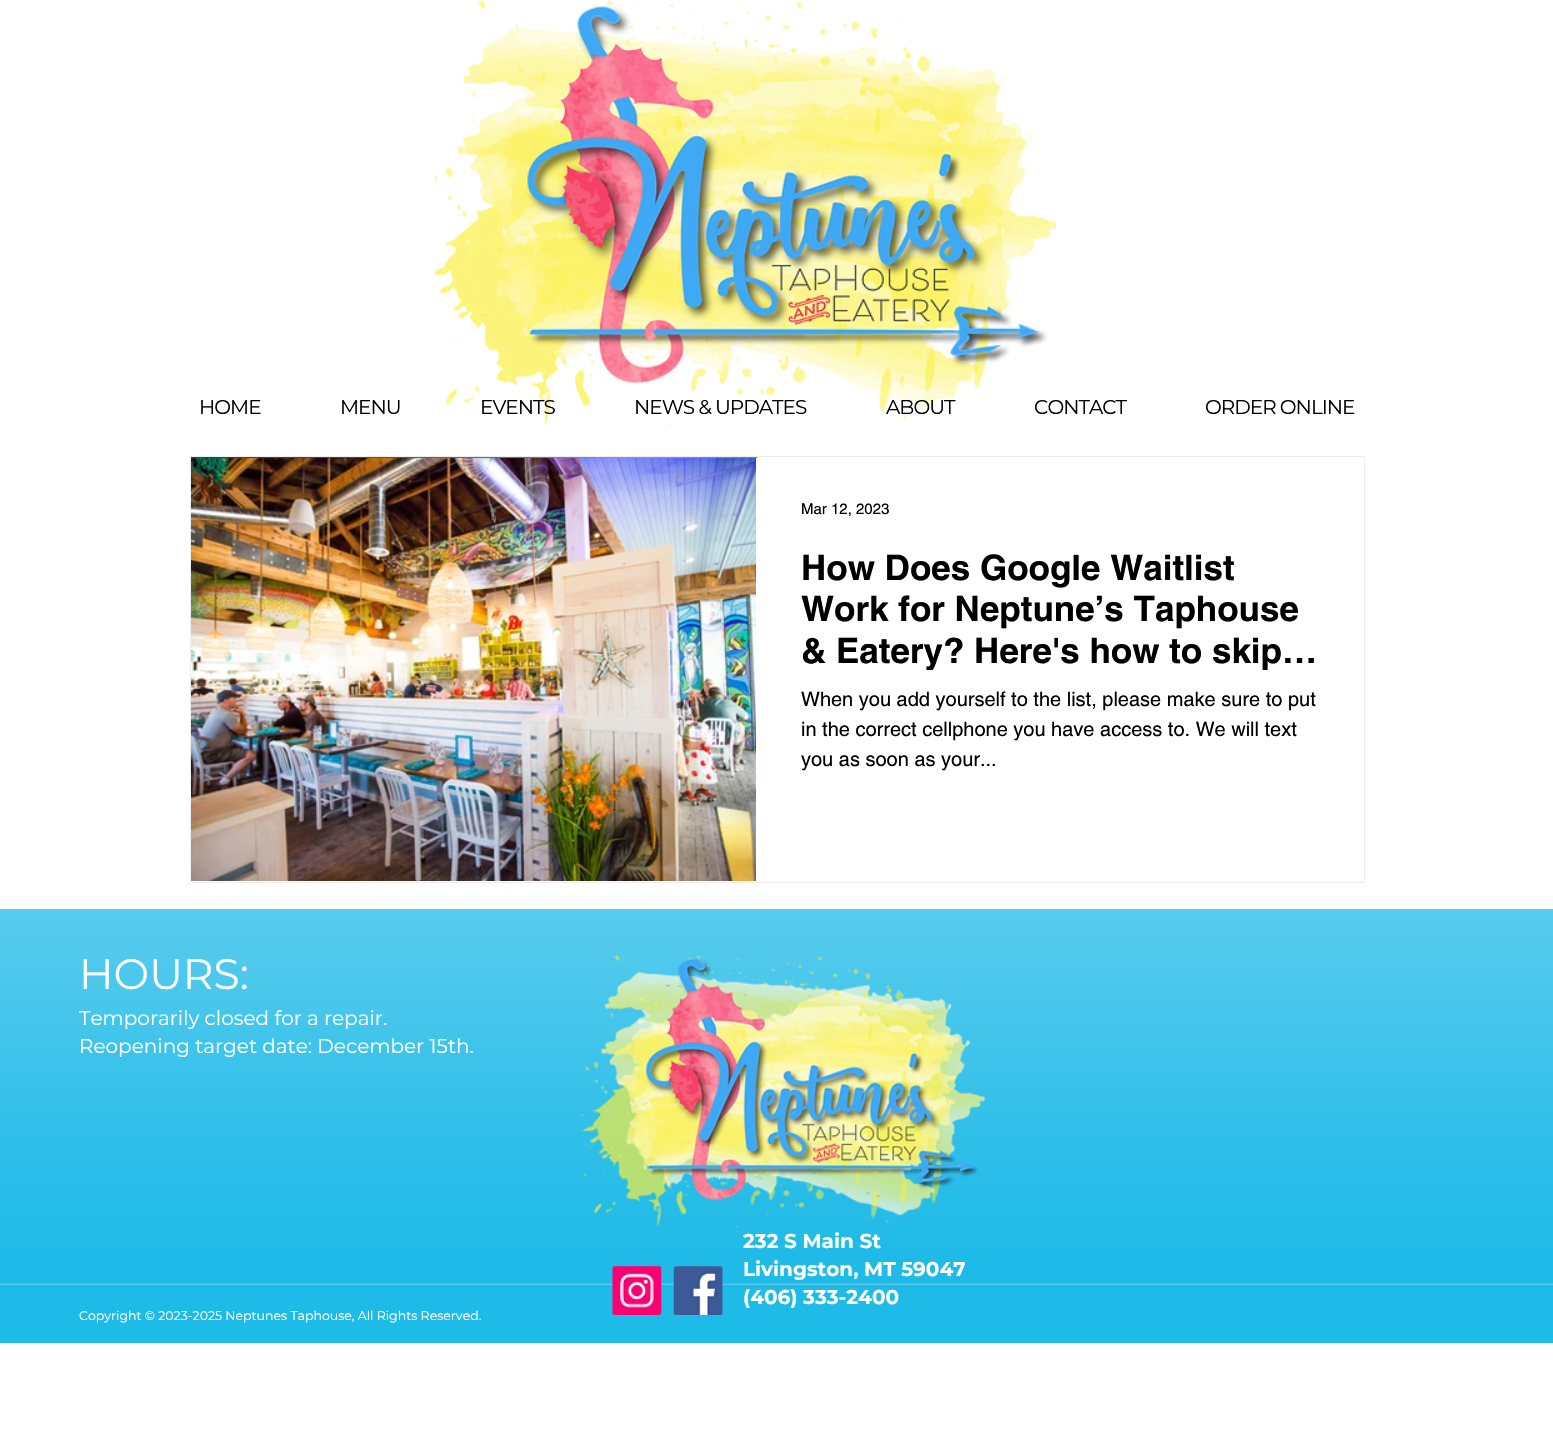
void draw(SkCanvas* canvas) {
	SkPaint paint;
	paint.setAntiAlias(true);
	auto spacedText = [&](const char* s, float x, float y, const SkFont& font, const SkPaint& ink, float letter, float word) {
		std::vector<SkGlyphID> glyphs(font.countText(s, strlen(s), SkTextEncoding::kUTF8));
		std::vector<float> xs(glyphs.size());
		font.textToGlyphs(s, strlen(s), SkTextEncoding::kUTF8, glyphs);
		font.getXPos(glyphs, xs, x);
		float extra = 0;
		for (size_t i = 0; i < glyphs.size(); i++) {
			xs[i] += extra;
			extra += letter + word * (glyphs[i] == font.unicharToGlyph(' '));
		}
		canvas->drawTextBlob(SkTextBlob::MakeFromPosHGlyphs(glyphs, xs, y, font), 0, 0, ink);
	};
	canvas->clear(0xffffffff);
	canvas->drawImageRect(SkImages::DeferredFromEncodedData(SkData::MakeFromFileName("img1.png")), SkRect::MakeXYWH(435, 0, 622, 427), SkSamplingOptions());
	SkFont f1(fontMgr->matchFamilyStyle("Montserrat", SkFontStyle::Normal()), 20);
	f1.setSubpixel(true);
	paint.setColor(0xff000000);
	spacedText("HOME", 199, 414, f1, paint, -1, 0);
	spacedText("MENU", 340, 414, f1, paint, -1, 0);
	spacedText("EVENTS", 480, 414, f1, paint, -1, 0);
	spacedText("NEWS & UPDATES", 634, 414, f1, paint, -1, 0);
	spacedText("ABOUT", 886, 414, f1, paint, -1, 0);
	spacedText("CONTACT", 1034, 414, f1, paint, -1, 0);
	spacedText("ORDER ONLINE", 1205, 414, f1, paint, -1, 0);
	paint.setStroke(true);
	paint.setStrokeWidth(1);
	paint.setColor(0xffeeecec);
	canvas->drawRect(SkRect::MakeXYWH(190.5, 456.5, 1174, 426), paint);
	canvas->drawImageRect(SkImages::DeferredFromEncodedData(SkData::MakeFromFileName("img2.png")), SkRect::MakeXYWH(191, 457, 567, 1), SkSamplingOptions());
	canvas->drawImageRect(SkImages::DeferredFromEncodedData(SkData::MakeFromFileName("img3.png")), SkRect::MakeXYWH(191, 458, 565, 423), SkSamplingOptions());
	SkFont f2(fontMgr->matchFamilyStyle("helvetica", SkFontStyle::Normal()), 15);
	f2.setSubpixel(true);
	paint.setStroke(false);
	paint.setColor(0xff000000);
	canvas->drawString("Mar 12, 2023", 801, 514, f2, paint);
	SkFont f3(fontMgr->matchFamilyStyle("helvetica", SkFontStyle::Bold()), 35);
	f3.setSubpixel(true);
	canvas->drawString("How Does Google Waitlist", 801, 580, f3, paint);
	canvas->drawString("Work for Neptune’s Taphouse", 801, 621, f3, paint);
	canvas->save();
	canvas->clipRect(SkRect::MakeXYWH(801, 546, 518, 124));
	canvas->drawString("& Eatery? Here's how to skip…", 801, 663, f3, paint);
	canvas->restore();
	SkFont f4(fontMgr->matchFamilyStyle("helvetica", SkFontStyle::Normal()), 20);
	f4.setSubpixel(true);
	canvas->drawString("When you add yourself to the list, please make sure to put", 801, 706, f4, paint);
	canvas->drawString("in the correct cellphone you have access to. We will text", 801, 736, f4, paint);
	canvas->drawString("you as soon as your...", 801, 766, f4, paint);
	paint.setColor(0xff1ebae8);
	canvas->drawRect(SkRect::MakeXYWH(0, 909, 1553, 434), paint);
	canvas->drawImageRect(SkImages::DeferredFromEncodedData(SkData::MakeFromFileName("img4.png")), SkRect::MakeXYWH(0, 909, 1553, 376), SkSamplingOptions());
	SkFont f5(fontMgr->matchFamilyStyle("Montserrat", SkFontStyle::Normal()), 42.5);
	f5.setSubpixel(true);
	paint.setColor(0xffffffff);
	canvas->drawString("HOURS:", 79, 989, f5, paint);
	canvas->drawString("Temporarily closed for a repair.", 79, 1025, f1, paint);
	canvas->drawString("Reopening target date: December 15th.", 79, 1053, f1, paint);
	canvas->drawImageRect(SkImages::DeferredFromEncodedData(SkData::MakeFromFileName("img5.png")), SkRect::MakeXYWH(581, 955, 405, 273), SkSamplingOptions());
	canvas->drawImageRect(SkImages::DeferredFromEncodedData(SkData::MakeFromFileName("img6.png")), SkRect::MakeXYWH(612, 1266, 50, 49), SkSamplingOptions());
	canvas->drawImageRect(SkImages::DeferredFromEncodedData(SkData::MakeFromFileName("img7.png")), SkRect::MakeXYWH(673, 1266, 50, 49), SkSamplingOptions());
	SkFont f6(fontMgr->matchFamilyStyle("Montserrat", SkFontStyle::Bold()), 20);
	f6.setSubpixel(true);
	canvas->drawString("232 S Main St", 743, 1248, f6, paint);
	canvas->drawString("Livingston, MT 59047", 743, 1276, f6, paint);
	canvas->drawString("(406) 333-2400", 743, 1304, f6, paint);
	SkFont f7(fontMgr->matchFamilyStyle("Montserrat", SkFontStyle::Normal()), 12.5);
	f7.setSubpixel(true);
	canvas->drawString("Copyright © 2023-2025 Neptunes Taphouse, All Rights Reserved.", 79, 1320, f7, paint);
}
